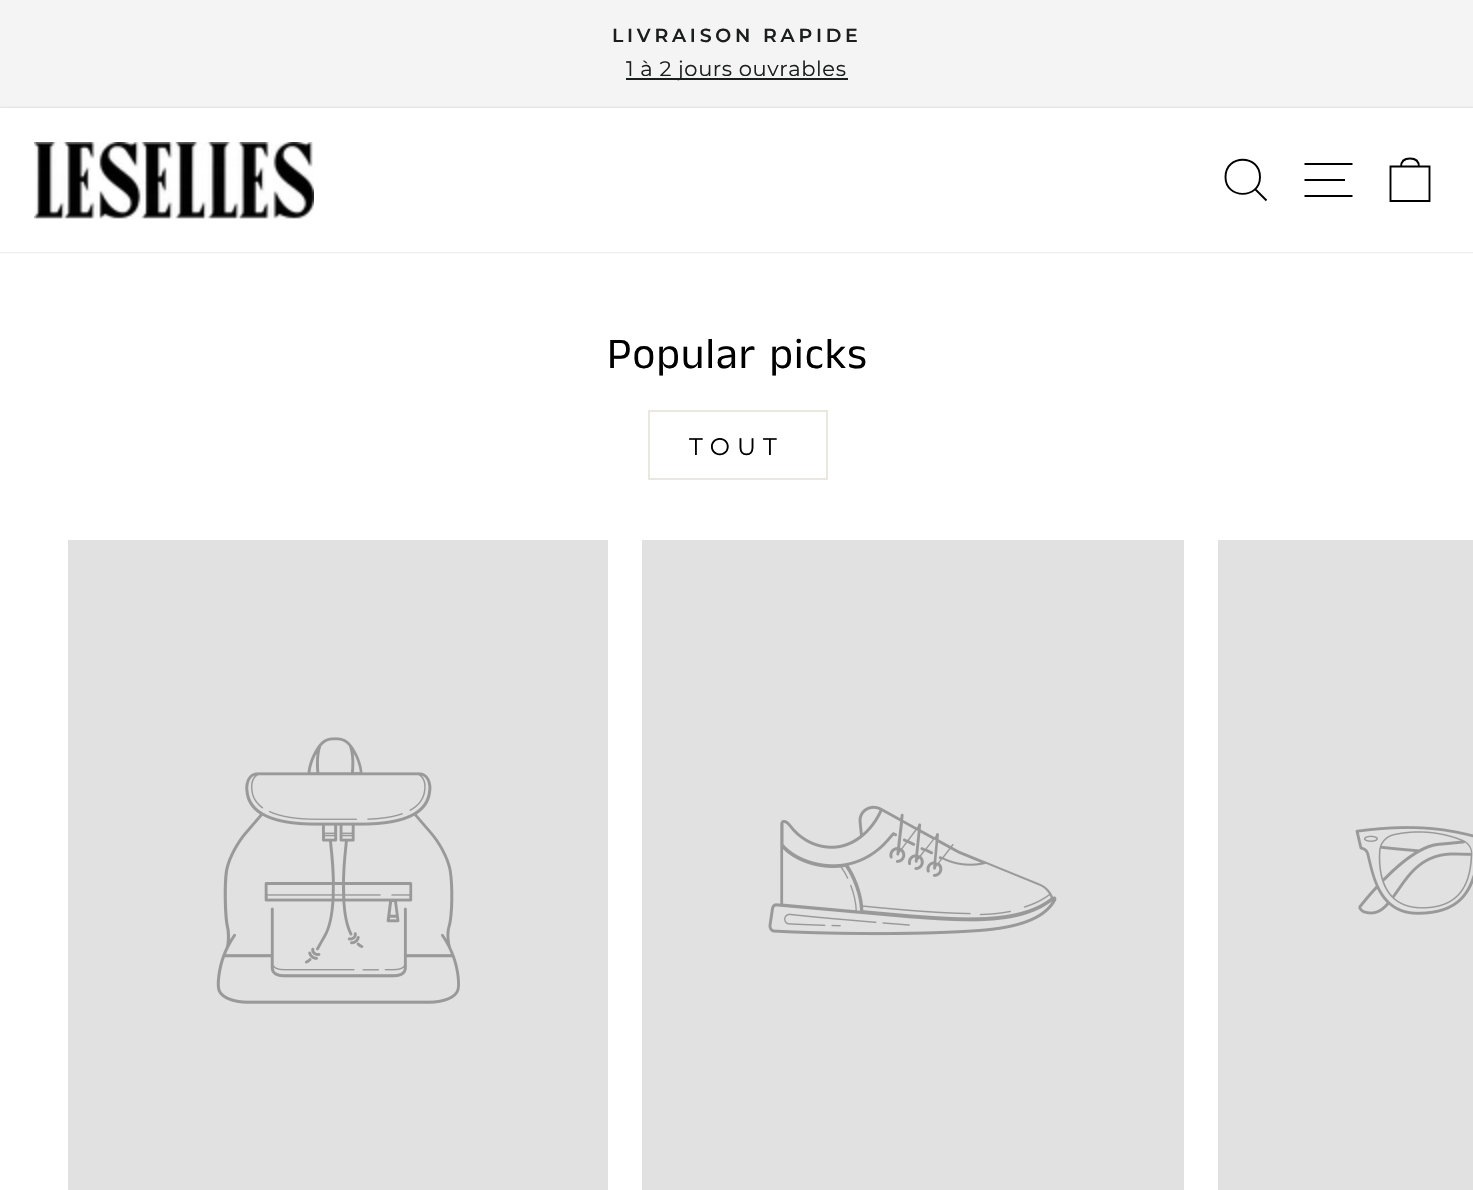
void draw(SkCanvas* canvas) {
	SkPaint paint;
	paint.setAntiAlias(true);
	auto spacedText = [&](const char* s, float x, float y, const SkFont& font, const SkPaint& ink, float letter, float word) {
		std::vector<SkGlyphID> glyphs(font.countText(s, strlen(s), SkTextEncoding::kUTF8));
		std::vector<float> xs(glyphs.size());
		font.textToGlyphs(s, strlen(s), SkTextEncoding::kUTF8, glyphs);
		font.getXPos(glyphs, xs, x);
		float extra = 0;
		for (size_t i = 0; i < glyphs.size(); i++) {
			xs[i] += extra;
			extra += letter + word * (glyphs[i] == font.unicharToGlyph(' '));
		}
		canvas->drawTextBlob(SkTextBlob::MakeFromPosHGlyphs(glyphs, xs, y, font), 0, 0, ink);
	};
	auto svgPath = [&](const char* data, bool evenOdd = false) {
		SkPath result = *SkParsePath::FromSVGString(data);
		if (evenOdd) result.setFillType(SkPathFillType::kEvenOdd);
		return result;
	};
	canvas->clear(0xffffffff);
	paint.setColor(0xfff4f4f4);
	canvas->drawRect(SkRect::MakeXYWH(0, 0, 1473, 108), paint);
	SkFont f1(fontMgr->matchFamilyStyle("Montserrat", SkFontStyle(600, SkFontStyle::kNormal_Width, SkFontStyle::kUpright_Slant)), 18.9);
	f1.setSubpixel(true);
	paint.setColor(0xff1c1d1d);
	spacedText("LIVRAISON RAPIDE", 612, 42, f1, paint, 3.75, 0);
	canvas->drawRect(SkRect::MakeXYWH(626, 78, 222, 2), paint);
	SkFont f2(fontMgr->matchFamilyStyle("Montserrat", SkFontStyle::Normal()), 21);
	f2.setSubpixel(true);
	spacedText("1 à 2 jours ouvrables", 626, 76, f2, paint, 0.6, 0);
	canvas->save();
	canvas->clipPath(svgPath("M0 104H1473V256H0ZM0 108H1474V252H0Z", true), true);
	paint.setColor(0x33000000);
	paint.setMaskFilter(SkMaskFilter::MakeBlur(kNormal_SkBlurStyle, 1));
	canvas->drawRect(SkRect::MakeXYWH(0, 108, 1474, 144), paint);
	paint.setMaskFilter(nullptr);
	canvas->restore();
	canvas->drawImageRect(SkImages::DeferredFromEncodedData(SkData::MakeFromFileName("img1.png")), SkRect::MakeXYWH(34, 142, 280, 77), SkSamplingOptions());
	paint.setStroke(true);
	paint.setStrokeWidth(1.9);
	paint.setColor(0xff000000);
	canvas->drawPath(svgPath("M1260 177C1260 199.5 1225.5 199.5 1225.5 177C1225.5 154 1260 154 1260 177ZM1266.5 200.5L1255.5 189.5"), paint);
	canvas->drawPath(svgPath("M1304.5 164H1352.5M1304.5 180H1345M1304.5 196H1352.5"), paint);
	canvas->drawPath(svgPath("M1390.5 166.5H1429.5V201H1390.5ZM1401 167C1401 160 1405 158.5 1410 158.5C1415 158.5 1419 160 1419 167"), paint);
	SkFont f3(fontMgr->matchFamilyStyle("Anek Tamil", SkFontStyle::Normal()), 43.75);
	f3.setSubpixel(true);
	paint.setStroke(false);
	spacedText("Popular picks", 607, 368, f3, paint, 1.1, 0);
	paint.setStroke(true);
	paint.setStrokeWidth(2);
	paint.setColor(0xffe8e8e1);
	canvas->drawRect(SkRect::MakeXYWH(649, 411, 178, 68), paint);
	SkFont f4(fontMgr->matchFamilyStyle("Montserrat", SkFontStyle::Normal()), 24);
	f4.setSubpixel(true);
	paint.setStroke(false);
	paint.setColor(0xff000000);
	spacedText("TOUT", 689, 455, f4, paint, 7, 0);
	paint.setColor(0xffe1e1e1);
	canvas->drawRect(SkRect::MakeXYWH(68, 540, 540, 650), paint);
	canvas->drawImageRect(SkImages::DeferredFromEncodedData(SkData::MakeFromFileName("img2.png")), SkRect::MakeXYWH(216, 737, 244, 267), SkSamplingOptions());
	canvas->drawRect(SkRect::MakeXYWH(642, 540, 542, 650), paint);
	canvas->drawImageRect(SkImages::DeferredFromEncodedData(SkData::MakeFromFileName("img3.png")), SkRect::MakeXYWH(768, 805, 289, 131), SkSamplingOptions());
	canvas->drawRect(SkRect::MakeXYWH(1218, 540, 255, 650), paint);
	canvas->drawImageRect(SkImages::DeferredFromEncodedData(SkData::MakeFromFileName("img4.png")), SkRect::MakeXYWH(1355, 826, 118, 89), SkSamplingOptions());
}
